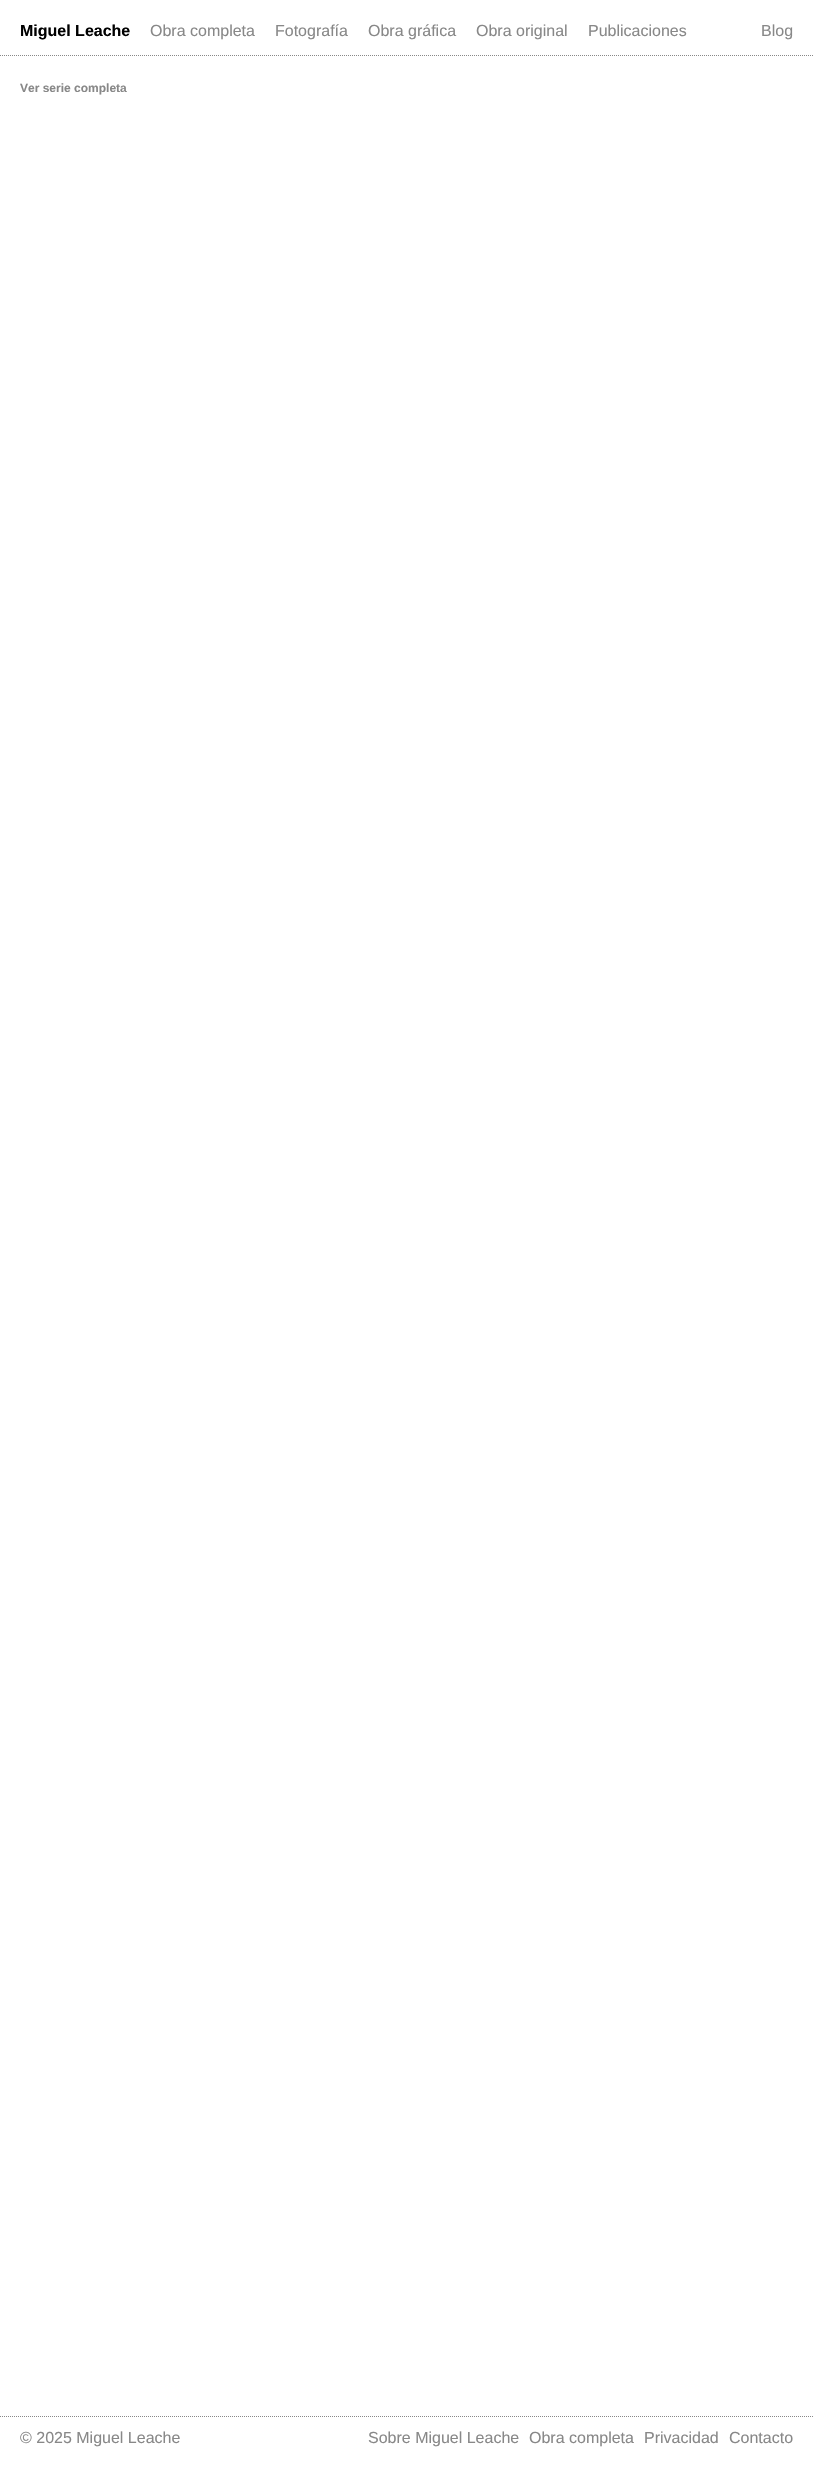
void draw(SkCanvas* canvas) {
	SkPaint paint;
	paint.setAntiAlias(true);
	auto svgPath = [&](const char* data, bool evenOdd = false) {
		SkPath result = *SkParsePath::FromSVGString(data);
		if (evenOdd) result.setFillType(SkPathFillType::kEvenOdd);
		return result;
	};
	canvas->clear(0xffffffff);
	paint.setStroke(true);
	paint.setStrokeWidth(1);
	paint.setColor(0xff888888);
	paint.setPathEffect(SkDashPathEffect::Make({{1, 1}}, 0));
	canvas->drawPath(svgPath("M0 55.5H813"), paint);
	paint.setPathEffect(nullptr);
	SkFont f1(fontMgr->matchFamilyStyle("Liberation Sans", SkFontStyle::Bold()), 16);
	f1.setSubpixel(true);
	paint.setStroke(false);
	paint.setColor(0xff000000);
	canvas->drawString("Miguel Leache", 20, 36, f1, paint);
	SkFont f2(fontMgr->matchFamilyStyle("Liberation Sans", SkFontStyle::Normal()), 16);
	f2.setSubpixel(true);
	paint.setColor(0xff888888);
	canvas->drawString("Obra completa", 150, 36, f2, paint);
	canvas->drawString("Fotografía", 275, 36, f2, paint);
	canvas->drawString("Obra gráfica", 368, 36, f2, paint);
	canvas->drawString("Obra original", 476, 36, f2, paint);
	canvas->drawString("Publicaciones", 588, 36, f2, paint);
	canvas->drawString("Blog", 761, 36, f2, paint);
	SkFont f3(fontMgr->matchFamilyStyle("Liberation Sans", SkFontStyle::Bold()), 12);
	f3.setSubpixel(true);
	canvas->drawString("Ver serie completa", 20, 92, f3, paint);
	paint.setStroke(true);
	paint.setPathEffect(SkDashPathEffect::Make({{1, 1}}, 0));
	canvas->drawPath(svgPath("M0 2416.5H813"), paint);
	paint.setPathEffect(nullptr);
	paint.setStroke(false);
	canvas->drawString("© 2025 Miguel Leache", 20, 2443, f2, paint);
	canvas->drawString("Sobre Miguel Leache", 368, 2443, f2, paint);
	canvas->drawString("Obra completa", 529, 2443, f2, paint);
	canvas->drawString("Privacidad", 644, 2443, f2, paint);
	canvas->drawString("Contacto", 729, 2443, f2, paint);
}
